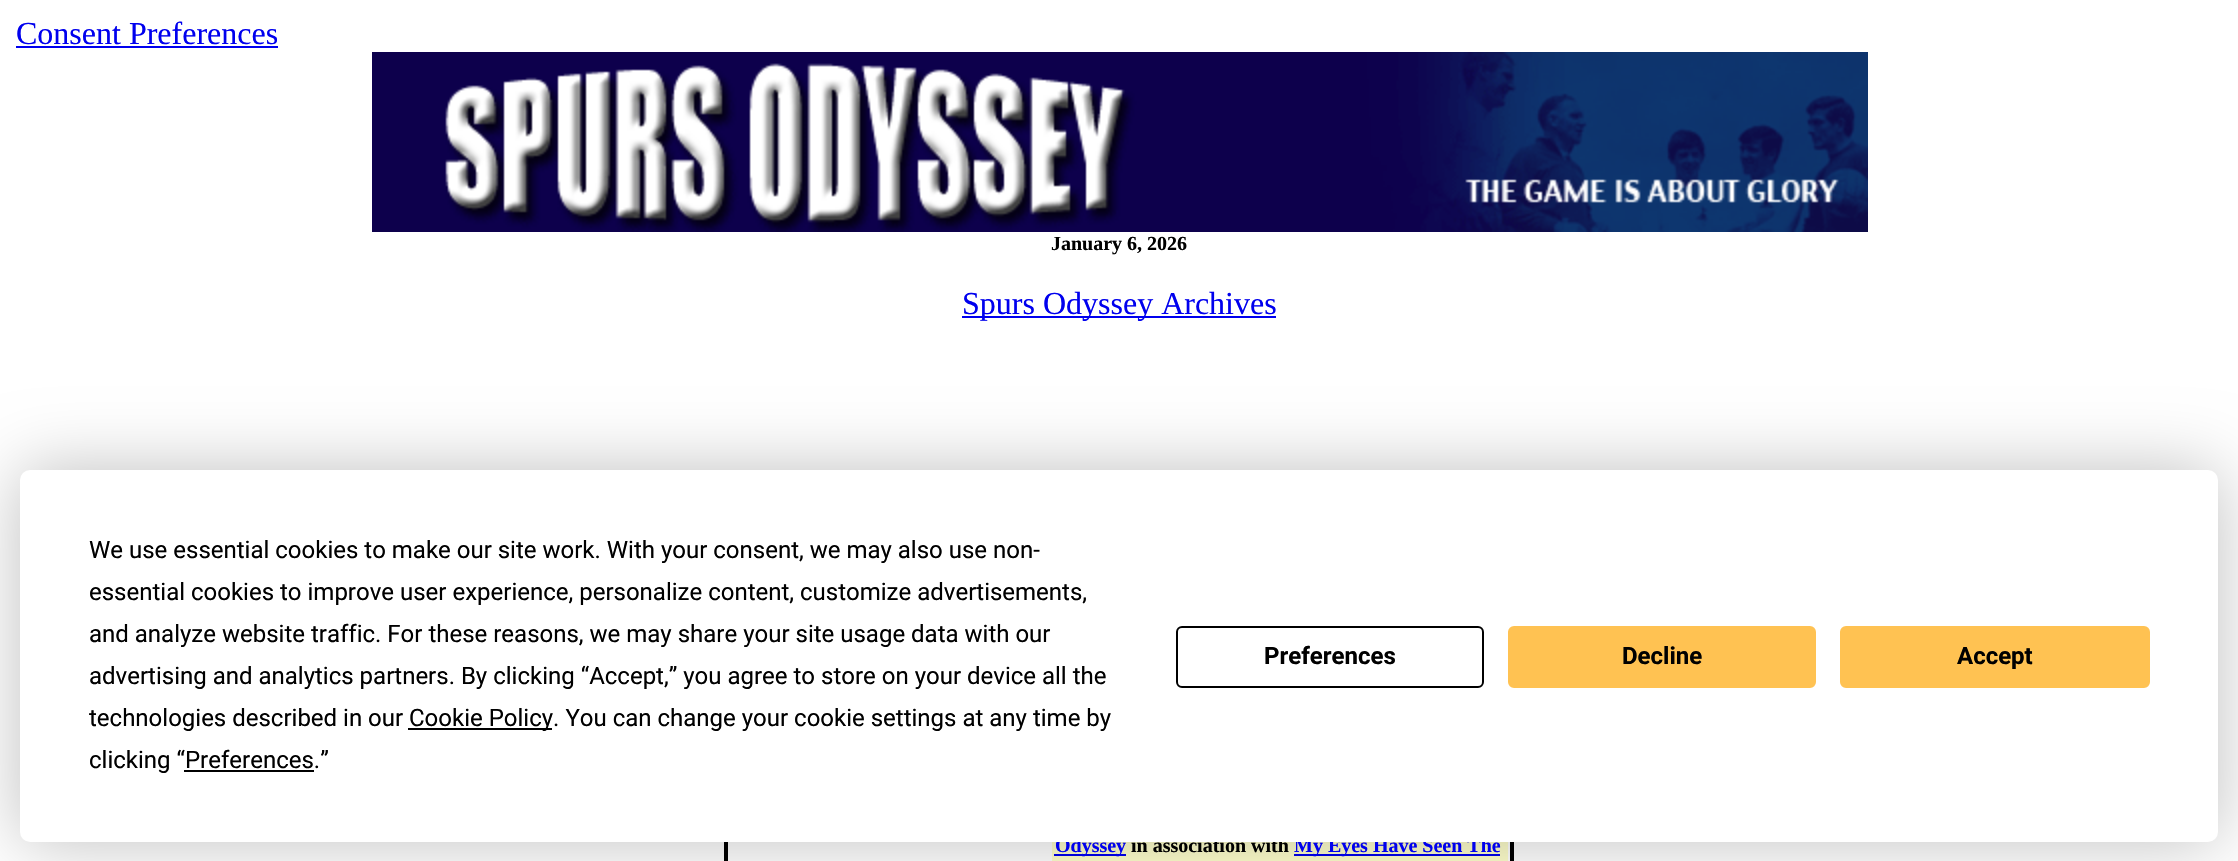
void draw(SkCanvas* canvas) {
	SkPaint paint;
	paint.setAntiAlias(true);
	canvas->clear(0xffffffff);
	SkFont f1(fontMgr->matchFamilyStyle("Liberation Serif", SkFontStyle::Normal()), 32);
	f1.setSubpixel(true);
	paint.setColor(0xff0000ee);
	canvas->drawString("Consent Preferences", 16, 44, f1, paint);
	canvas->drawRect(SkRect::MakeXYWH(16, 46, 262, 2), paint);
	canvas->drawImageRect(SkImages::DeferredFromEncodedData(SkData::MakeFromFileName("img1.png")), SkRect::MakeXYWH(372, 52, 1496, 180), SkSamplingOptions());
	SkFont f2(fontMgr->matchFamilyStyle("Liberation Serif", SkFontStyle::Bold()), 20);
	f2.setSubpixel(true);
	paint.setColor(0xff000000);
	canvas->drawString("January 6, 2026", 1051, 250, f2, paint);
	paint.setColor(0xff0000ee);
	canvas->drawRect(SkRect::MakeXYWH(962, 316, 314, 2), paint);
	canvas->drawString("Spurs Odyssey Archives", 962, 314, f1, paint);
	paint.setColor(0xff000000);
	canvas->drawRect(SkRect::MakeXYWH(724, 842, 790, 19), paint);
	paint.setColor(0xffffffff);
	canvas->drawRect(SkRect::MakeXYWH(728, 842, 782, 19), paint);
	paint.setColor(0xffffffcc);
	canvas->drawRect(SkRect::MakeXYWH(1052, 842, 456, 19), paint);
	paint.setColor(0xff0000ee);
	canvas->drawRect(SkRect::MakeXYWH(1054, 854, 72, 2), paint);
	canvas->drawRect(SkRect::MakeXYWH(1294, 854, 206, 2), paint);
	paint.setColor(0x40000000);
	paint.setMaskFilter(SkMaskFilter::MakeBlur(kNormal_SkBlurStyle, 35));
	canvas->drawRoundRect(SkRect::MakeXYWH(20, 470, 2198, 372), 10, 10, paint);
	paint.setMaskFilter(nullptr);
	paint.setColor(0xff0000ee);
	canvas->drawString("Odyssey", 1055, 852, f2, paint);
	paint.setColor(0xff000000);
	canvas->drawString("in association with", 1131, 852, f2, paint);
	paint.setColor(0xff0000ee);
	canvas->drawString("My Eyes Have Seen The", 1294, 852, f2, paint);
	paint.setColor(0xffffffff);
	canvas->drawRoundRect(SkRect::MakeXYWH(20, 470, 2198, 372), 10, 10, paint);
	SkFont f3(fontMgr->matchFamilyStyle("Roboto", SkFontStyle::Normal()), 24);
	f3.setSubpixel(true);
	paint.setColor(0xff000000);
	canvas->drawString("We use essential cookies to make our site work. With your consent, we may also use non-", 89, 558, f3, paint);
	canvas->drawString("essential cookies to improve user experience, personalize content, customize advertisements,", 89, 600, f3, paint);
	canvas->drawString("and analyze website traffic. For these reasons, we may share your site usage data with our", 89, 642, f3, paint);
	canvas->drawString("advertising and analytics partners. By clicking “Accept,” you agree to store on your device all the", 89, 684, f3, paint);
	canvas->drawString("technologies described in our", 89, 726, f3, paint);
	canvas->drawRect(SkRect::MakeXYWH(408, 728, 144, 2), paint);
	canvas->drawString("Cookie Policy. You can change your cookie settings at any time by", 409, 726, f3, paint);
	canvas->drawString("clicking “Preferences.”", 89, 768, f3, paint);
	canvas->drawRect(SkRect::MakeXYWH(184, 770, 130, 2), paint);
	paint.setStroke(true);
	paint.setStrokeWidth(2);
	canvas->drawRoundRect(SkRect::MakeXYWH(1177, 627, 306, 60), 5, 5, paint);
	SkFont f4(fontMgr->matchFamilyStyle("Roboto", SkFontStyle::Bold()), 24);
	f4.setSubpixel(true);
	paint.setStroke(false);
	canvas->drawString("Preferences", 1264, 664, f4, paint);
	paint.setColor(0xffffc252);
	canvas->drawRoundRect(SkRect::MakeXYWH(1509, 627, 306, 60), 5, 5, paint);
	paint.setStroke(true);
	canvas->drawRoundRect(SkRect::MakeXYWH(1509, 627, 306, 60), 5, 5, paint);
	paint.setStroke(false);
	paint.setColor(0xff000000);
	canvas->drawString("Decline", 1622, 664, f4, paint);
	paint.setColor(0xffffc252);
	canvas->drawRoundRect(SkRect::MakeXYWH(1841, 627, 308, 60), 5, 5, paint);
	paint.setStroke(true);
	canvas->drawRoundRect(SkRect::MakeXYWH(1841, 627, 308, 60), 5, 5, paint);
	paint.setStroke(false);
	paint.setColor(0xff000000);
	canvas->drawString("Accept", 1957, 664, f4, paint);
}
